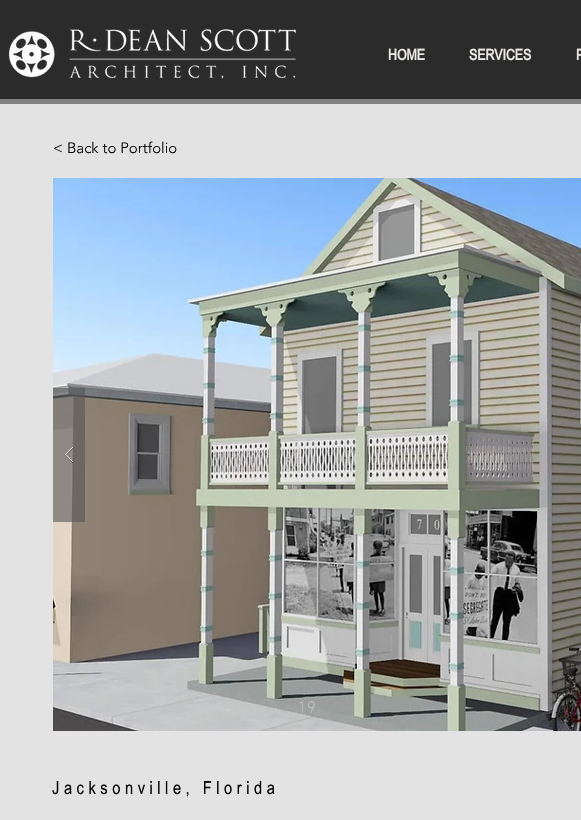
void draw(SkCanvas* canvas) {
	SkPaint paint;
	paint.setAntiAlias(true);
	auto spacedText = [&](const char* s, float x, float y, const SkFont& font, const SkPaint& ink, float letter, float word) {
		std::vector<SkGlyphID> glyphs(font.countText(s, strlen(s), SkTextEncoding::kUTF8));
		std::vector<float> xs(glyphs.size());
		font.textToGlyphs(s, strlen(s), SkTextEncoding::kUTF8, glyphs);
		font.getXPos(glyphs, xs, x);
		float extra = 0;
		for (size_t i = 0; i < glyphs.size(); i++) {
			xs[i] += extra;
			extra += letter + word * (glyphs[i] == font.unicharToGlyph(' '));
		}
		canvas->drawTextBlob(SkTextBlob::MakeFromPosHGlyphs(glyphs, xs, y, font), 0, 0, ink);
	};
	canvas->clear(0xffe3e3e3);
	paint.setColor(0xff2b2b2b);
	canvas->drawRect(SkRect::MakeXYWH(0, 0, 581, 99), paint);
	paint.setColor(0xff808080);
	canvas->drawRect(SkRect::MakeXYWH(0, 99, 581, 5), paint);
	canvas->drawImageRect(SkImages::DeferredFromEncodedData(SkData::MakeFromFileName("img1.png")), SkRect::MakeXYWH(8, 29, 288, 50), SkSamplingOptions());
	SkFont f1(fontMgr->matchFamilyStyle("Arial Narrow", SkFontStyle::Bold()), 15);
	f1.setSubpixel(true);
	paint.setColor(0xffebe9e6);
	canvas->drawString("HOME", 388, 60, f1, paint);
	canvas->drawString("SERVICES", 469, 60, f1, paint);
	canvas->drawString("P", 576, 60, f1, paint);
	SkFont f2(fontMgr->matchFamilyStyle("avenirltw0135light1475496", SkFontStyle(300, SkFontStyle::kNormal_Width, SkFontStyle::kUpright_Slant)), 15);
	f2.setSubpixel(true);
	paint.setColor(0xff000000);
	canvas->drawString("< Back to Portfolio", 53, 153, f2, paint);
	canvas->drawImageRect(SkImages::DeferredFromEncodedData(SkData::MakeFromFileName("img3.png")), SkRect::MakeXYWH(53, 178, 528, 553), SkSamplingOptions());
	paint.setColor(0x99555555);
	canvas->drawRect(SkRect::MakeXYWH(53, 388, 32, 134), paint);
	canvas->drawImageRect(SkImages::DeferredFromEncodedData(SkData::MakeFromFileName("img2.png")), SkRect::MakeXYWH(65, 447, 8, 16), SkSamplingOptions());
	SkFont f3(fontMgr->matchFamilyStyle("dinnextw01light", SkFontStyle(300, SkFontStyle::kNormal_Width, SkFontStyle::kUpright_Slant)), 17);
	f3.setSubpixel(true);
	paint.setColor(0xffbbbebe);
	canvas->drawString(".19", 294, 713, f3, paint);
	SkFont f4(fontMgr->matchFamilyStyle("Arial Narrow", SkFontStyle::Normal()), 18);
	f4.setSubpixel(true);
	paint.setColor(0xff000000);
	spacedText("Jacksonville, Florida", 52, 794, f4, paint, 4.5, 0);
}
